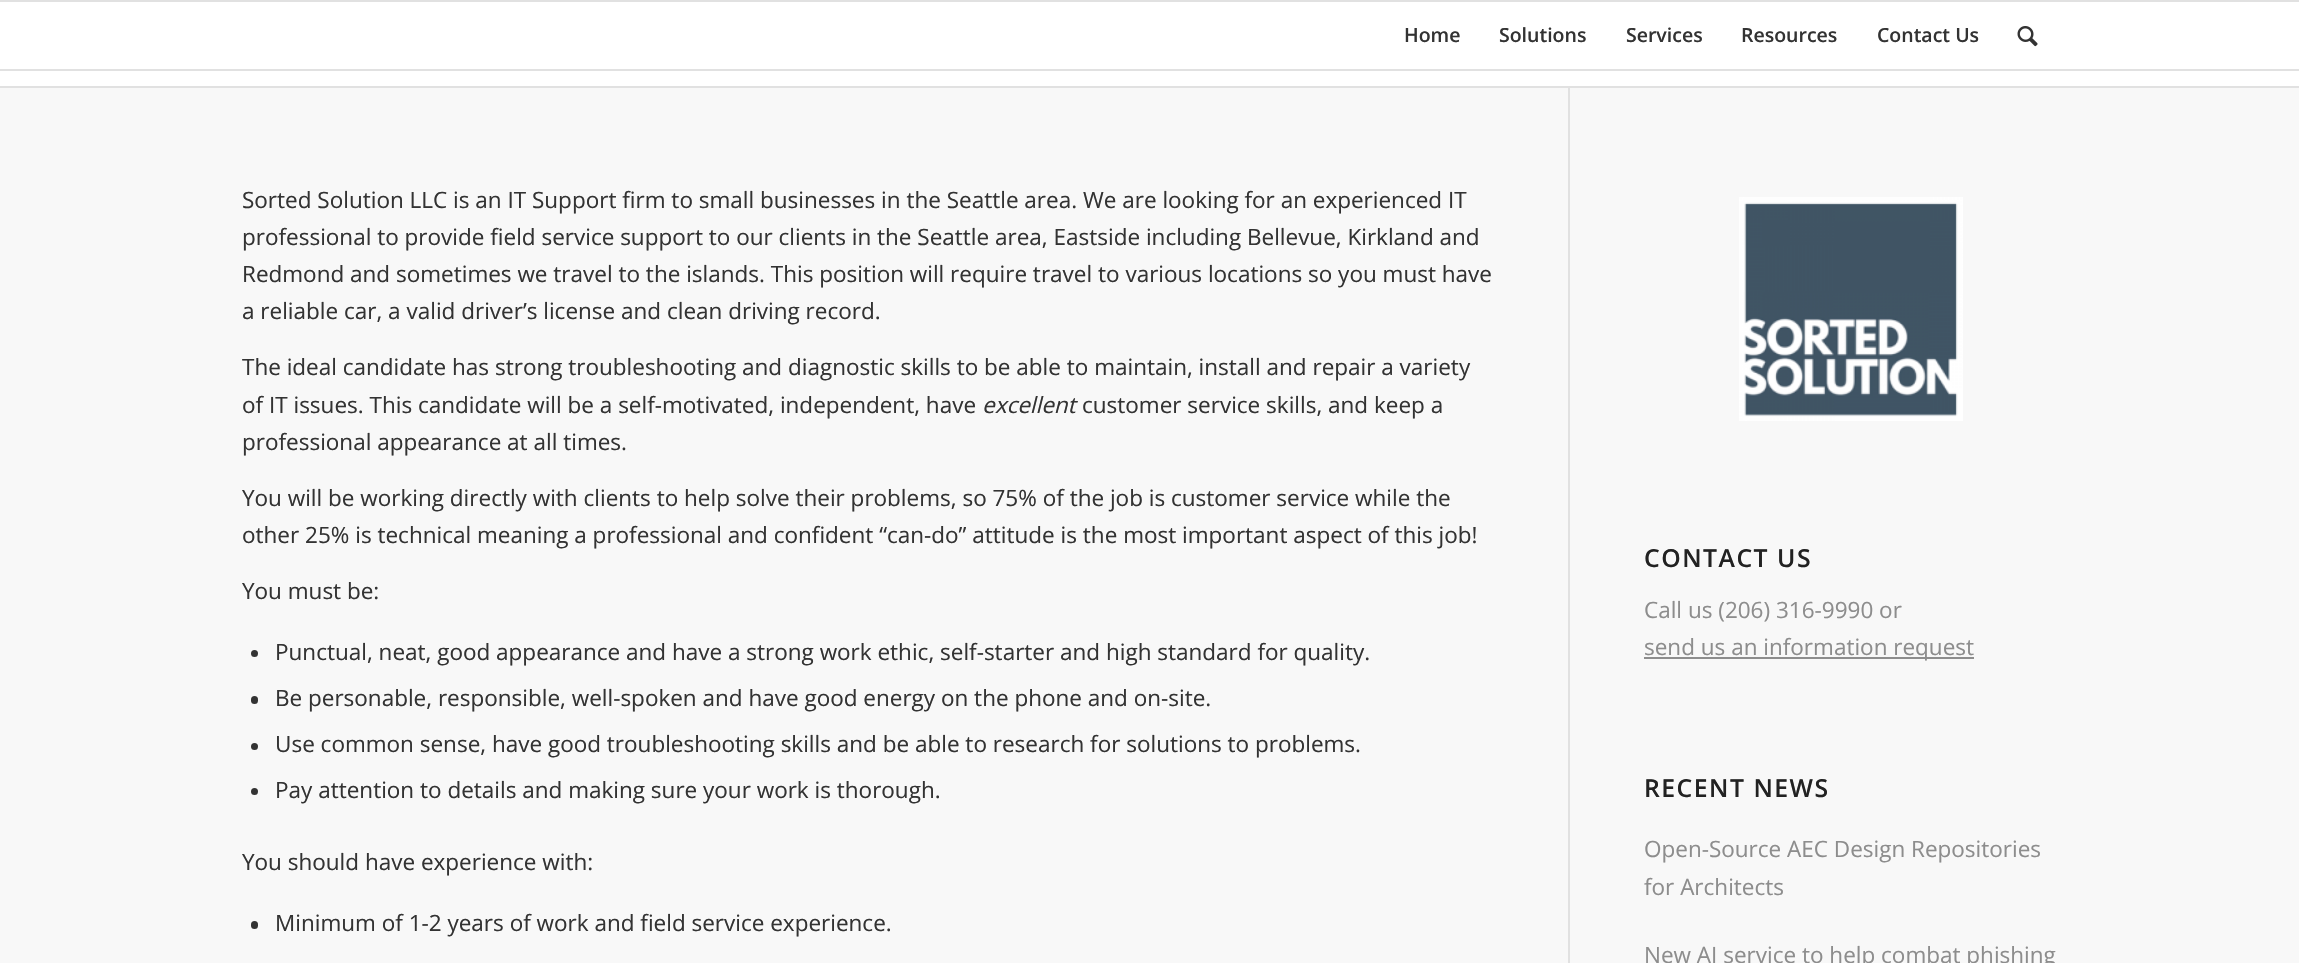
void draw(SkCanvas* canvas) {
	SkPaint paint;
	paint.setAntiAlias(true);
	auto spacedText = [&](const char* s, float x, float y, const SkFont& font, const SkPaint& ink, float letter, float word) {
		std::vector<SkGlyphID> glyphs(font.countText(s, strlen(s), SkTextEncoding::kUTF8));
		std::vector<float> xs(glyphs.size());
		font.textToGlyphs(s, strlen(s), SkTextEncoding::kUTF8, glyphs);
		font.getXPos(glyphs, xs, x);
		float extra = 0;
		for (size_t i = 0; i < glyphs.size(); i++) {
			xs[i] += extra;
			extra += letter + word * (glyphs[i] == font.unicharToGlyph(' '));
		}
		canvas->drawTextBlob(SkTextBlob::MakeFromPosHGlyphs(glyphs, xs, y, font), 0, 0, ink);
	};
	canvas->clear(0xffffffff);
	paint.setColor(0xffe1e1e1);
	canvas->drawRect(SkRect::MakeXYWH(0, 0, 2299, 2), paint);
	canvas->drawRect(SkRect::MakeXYWH(0, 69, 2299, 2), paint);
	SkFont f1(fontMgr->matchFamilyStyle("Open Sans", SkFontStyle(600, SkFontStyle::kNormal_Width, SkFontStyle::kUpright_Slant)), 19.5);
	f1.setSubpixel(true);
	paint.setColor(0xff333333);
	canvas->drawString("Home", 1404, 42, f1, paint);
	canvas->drawString("Solutions", 1499, 42, f1, paint);
	canvas->drawString("Services", 1626, 42, f1, paint);
	canvas->drawString("Resources", 1741, 42, f1, paint);
	canvas->drawString("Contact Us", 1877, 42, f1, paint);
	canvas->drawImageRect(SkImages::DeferredFromEncodedData(SkData::MakeFromFileName("img1.png")), SkRect::MakeXYWH(2017, 26, 21, 21), SkSamplingOptions());
	paint.setColor(0xfff8f8f8);
	canvas->drawRect(SkRect::MakeXYWH(0, 88, 2299, 875), paint);
	paint.setColor(0xffe1e1e1);
	canvas->drawRect(SkRect::MakeXYWH(0, 86, 2299, 2), paint);
	canvas->drawRect(SkRect::MakeXYWH(1568, 87, 2, 876), paint);
	SkFont f2(fontMgr->matchFamilyStyle("Open Sans", SkFontStyle::Normal()), 22.5);
	f2.setSubpixel(true);
	paint.setColor(0xff333333);
	canvas->drawString("Sorted Solution LLC is an IT Support firm to small businesses in the Seattle area. We are looking for an experienced IT", 242, 208, f2, paint);
	canvas->drawString("professional to provide field service support to our clients in the Seattle area, Eastside including Bellevue, Kirkland and", 242, 245, f2, paint);
	canvas->drawString("Redmond and sometimes we travel to the islands. This position will require travel to various locations so you must have", 242, 282, f2, paint);
	canvas->drawString("a reliable car, a valid driver’s license and clean driving record.", 242, 319, f2, paint);
	canvas->drawString("The ideal candidate has strong troubleshooting and diagnostic skills to be able to maintain, install and repair a variety", 242, 375, f2, paint);
	canvas->drawString("of IT issues. This candidate will be a self-motivated, independent, have", 242, 413, f2, paint);
	SkFont f3(fontMgr->matchFamilyStyle("Open Sans", SkFontStyle::Italic()), 22.5);
	f3.setSubpixel(true);
	canvas->drawString("excellent", 982, 413, f3, paint);
	canvas->drawString("customer service skills, and keep a", 1082, 413, f2, paint);
	canvas->drawString("professional appearance at all times.", 242, 450, f2, paint);
	canvas->drawString("You will be working directly with clients to help solve their problems, so 75% of the job is customer service while the", 242, 506, f2, paint);
	canvas->drawString("other 25% is technical meaning a professional and confident “can-do” attitude is the most important aspect of this job!", 242, 543, f2, paint);
	canvas->drawString("You must be:", 242, 599, f2, paint);
	canvas->drawCircle(254.5, 653.5, 3.5, paint);
	canvas->drawString("Punctual, neat, good appearance and have a strong work ethic, self-starter and high standard for quality.", 275, 660, f2, paint);
	canvas->drawRoundRect(SkRect::MakeXYWH(251, 696, 7, 8), 3.5, 3.5, paint);
	canvas->drawString("Be personable, responsible, well-spoken and have good energy on the phone and on-site.", 275, 706, f2, paint);
	canvas->drawCircle(254.5, 746.5, 3.5, paint);
	canvas->drawString("Use common sense, have good troubleshooting skills and be able to research for solutions to problems.", 275, 752, f2, paint);
	canvas->drawCircle(254.5, 791.5, 3.5, paint);
	canvas->drawString("Pay attention to details and making sure your work is thorough.", 275, 798, f2, paint);
	canvas->drawString("You should have experience with:", 242, 870, f2, paint);
	canvas->drawRoundRect(SkRect::MakeXYWH(251, 921, 7, 8), 3.5, 3.5, paint);
	canvas->drawString("Minimum of 1-2 years of work and field service experience.", 275, 931, f2, paint);
	canvas->drawImageRect(SkImages::DeferredFromEncodedData(SkData::MakeFromFileName("img2.png")), SkRect::MakeXYWH(1739, 197, 224, 224), SkSamplingOptions());
	SkFont f4(fontMgr->matchFamilyStyle("Open Sans", SkFontStyle(600, SkFontStyle::kNormal_Width, SkFontStyle::kUpright_Slant)), 24.75);
	f4.setSubpixel(true);
	paint.setColor(0xff222222);
	spacedText("CONTACT US", 1644, 567, f4, paint, 1.5, 0);
	paint.setColor(0xff8d8d8d);
	canvas->drawString("Call us (206) 316-9990 or", 1644, 618, f2, paint);
	canvas->drawRect(SkRect::MakeXYWH(1644, 657, 330, 2), paint);
	canvas->drawString("send us an information request", 1644, 655, f2, paint);
	paint.setColor(0xff222222);
	spacedText("RECENT NEWS", 1644, 797, f4, paint, 1.5, 0);
	paint.setColor(0xff8d8d8d);
	canvas->drawString("Open-Source AEC Design Repositories", 1644, 857, f2, paint);
	canvas->drawString("for Architects", 1644, 895, f2, paint);
	canvas->drawString("New AI service to help combat phishing", 1644, 963, f2, paint);
}
